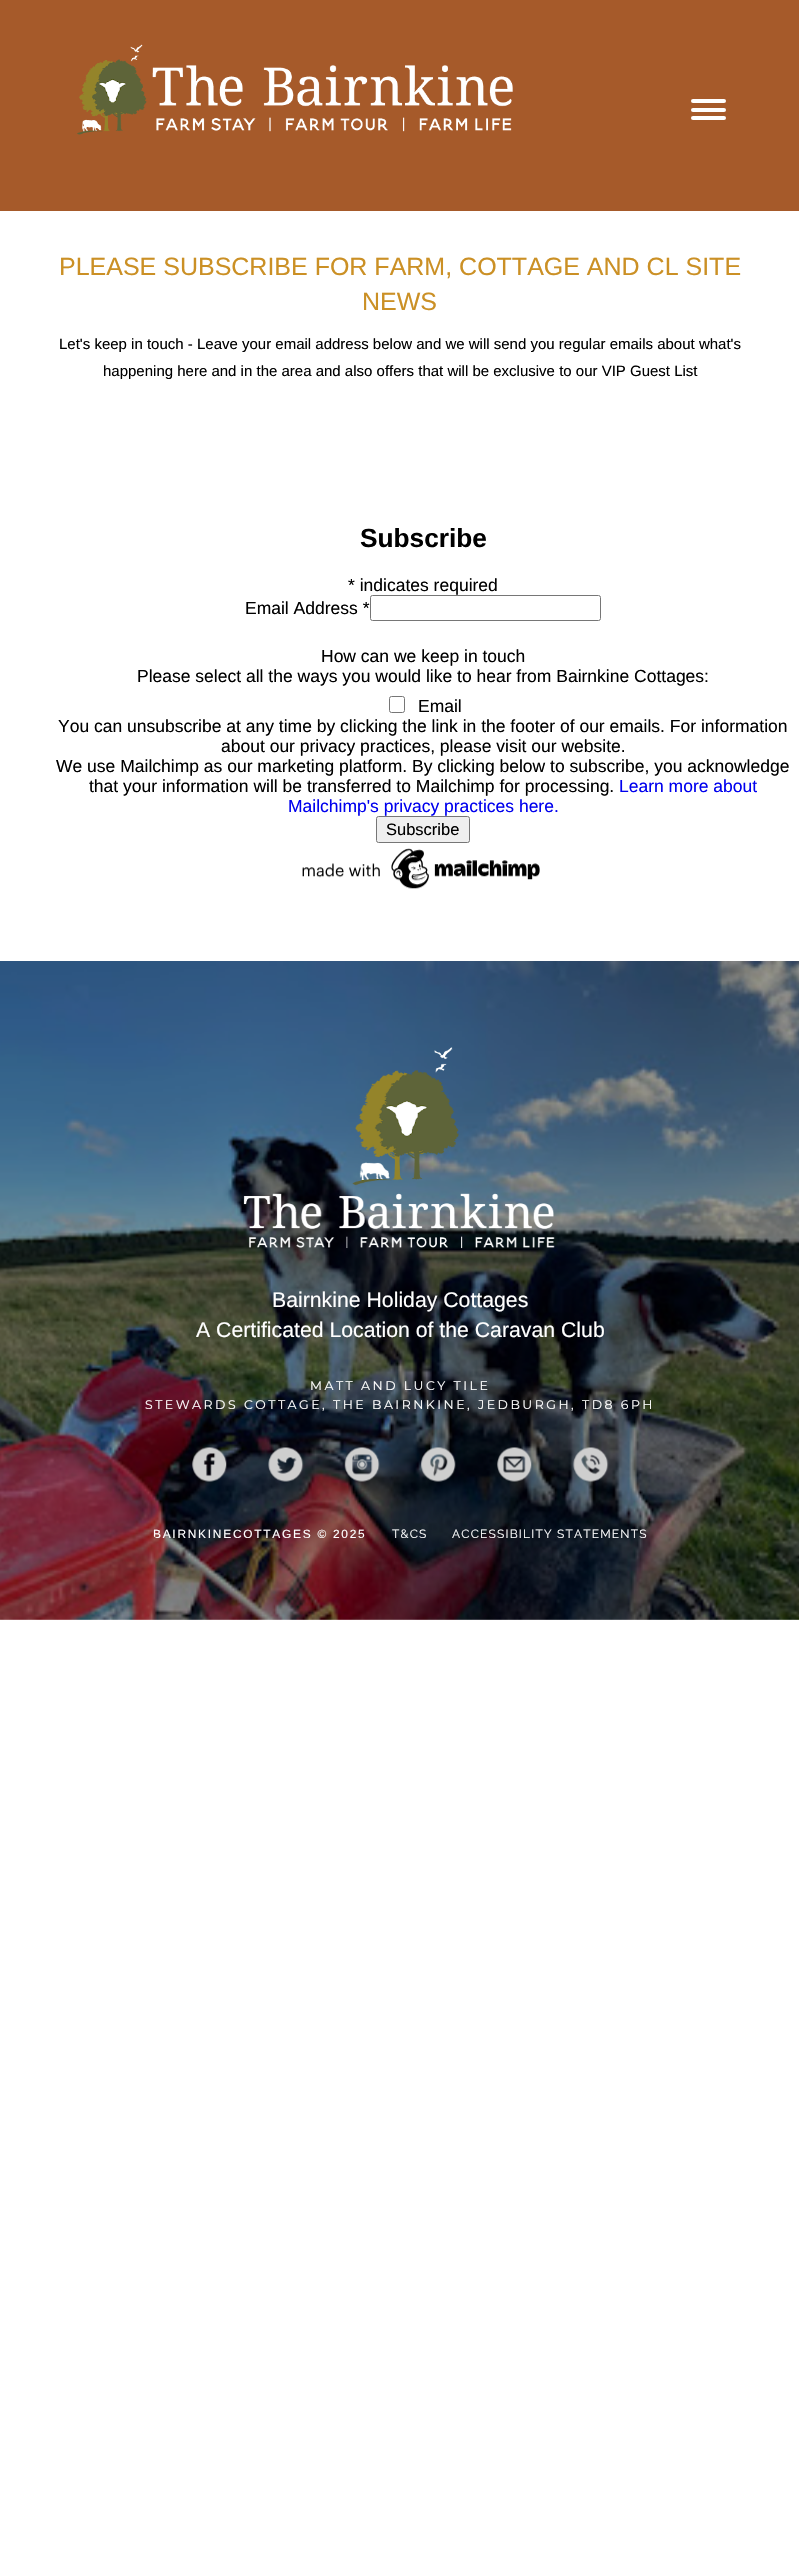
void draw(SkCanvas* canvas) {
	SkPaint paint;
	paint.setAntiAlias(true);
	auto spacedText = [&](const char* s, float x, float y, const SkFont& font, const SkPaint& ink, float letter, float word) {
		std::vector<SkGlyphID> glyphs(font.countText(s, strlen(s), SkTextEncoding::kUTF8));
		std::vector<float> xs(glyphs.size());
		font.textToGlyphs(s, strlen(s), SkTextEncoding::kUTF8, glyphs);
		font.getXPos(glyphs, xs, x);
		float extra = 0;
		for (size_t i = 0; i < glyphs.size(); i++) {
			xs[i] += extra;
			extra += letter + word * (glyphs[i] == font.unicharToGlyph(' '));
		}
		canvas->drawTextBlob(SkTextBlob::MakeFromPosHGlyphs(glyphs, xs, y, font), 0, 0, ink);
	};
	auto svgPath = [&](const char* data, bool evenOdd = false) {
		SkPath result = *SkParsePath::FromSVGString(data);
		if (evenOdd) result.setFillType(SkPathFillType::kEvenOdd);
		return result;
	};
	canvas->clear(0xffffffff);
	paint.setColor(0xffa65a2a);
	canvas->drawRect(SkRect::MakeXYWH(0, 0, 799, 211), paint);
	canvas->drawImageRect(SkImages::DeferredFromEncodedData(SkData::MakeFromFileName("img1.png")), SkRect::MakeXYWH(77, 44, 436, 91), SkSamplingOptions());
	paint.setColor(0xffffffff);
	canvas->drawRoundRect(SkRect::MakeXYWH(691, 108, 35, 4), 2, 2, paint);
	canvas->drawRoundRect(SkRect::MakeXYWH(691, 99, 35, 4), 2, 2, paint);
	canvas->drawRoundRect(SkRect::MakeXYWH(691, 116, 35, 4), 2, 2, paint);
	SkFont f1(fontMgr->matchFamilyStyle("Liberation Sans", SkFontStyle::Normal()), 25);
	f1.setSubpixel(true);
	paint.setColor(0xffcb9025);
	canvas->drawString("PLEASE SUBSCRIBE FOR FARM, COTTAGE AND CL SITE", 59, 275, f1, paint);
	canvas->drawString("NEWS", 362, 310, f1, paint);
	SkFont f2(fontMgr->matchFamilyStyle("Liberation Sans", SkFontStyle::Normal()), 15);
	f2.setSubpixel(true);
	paint.setColor(0xff000000);
	canvas->drawString("Let's keep in touch - Leave your email address below and we will send you regular emails about what's", 59, 349, f2, paint);
	canvas->drawString("happening here and in the area and also offers that will be exclusive to our VIP Guest List", 103, 376, f2, paint);
	SkFont f3(fontMgr->matchFamilyStyle("Liberation Sans", SkFontStyle::Bold()), 26.25);
	f3.setSubpixel(true);
	canvas->drawString("Subscribe", 360, 547, f3, paint);
	SkFont f4(fontMgr->matchFamilyStyle("Liberation Sans", SkFontStyle::Normal()), 17.5);
	f4.setSubpixel(true);
	canvas->drawString("* indicates required", 348, 591, f4, paint);
	canvas->drawString("Email Address *", 245, 614, f4, paint);
	paint.setStroke(true);
	paint.setStrokeWidth(1);
	paint.setColor(0xff767676);
	canvas->drawRoundRect(SkRect::MakeXYWH(370.5, 595.5, 230, 25), 2, 2, paint);
	paint.setStroke(false);
	paint.setColor(0xff000000);
	canvas->drawString("How can we keep in touch", 321, 662, f4, paint);
	canvas->drawString("Please select all the ways you would like to hear from Bairnkine Cottages:", 137, 682, f4, paint);
	paint.setStroke(true);
	paint.setColor(0xff767676);
	canvas->drawRoundRect(SkRect::MakeXYWH(389.5, 696.5, 15, 16), 2, 2, paint);
	paint.setStroke(false);
	paint.setColor(0xff000000);
	canvas->drawString("Email", 418, 712, f4, paint);
	canvas->drawString("You can unsubscribe at any time by clicking the link in the footer of our emails. For information", 58, 732, f4, paint);
	canvas->drawString("about our privacy practices, please visit our website.", 221, 752, f4, paint);
	canvas->drawString("We use Mailchimp as our marketing platform. By clicking below to subscribe, you acknowledge", 56, 772, f4, paint);
	canvas->drawString("that your information will be transferred to Mailchimp for processing.", 89, 792, f4, paint);
	paint.setColor(0xff0000ee);
	canvas->drawString("Learn more about", 619, 792, f4, paint);
	canvas->drawString("Mailchimp's privacy practices here.", 288, 812, f4, paint);
	paint.setColor(0xffefefef);
	canvas->drawRoundRect(SkRect::MakeXYWH(376.5, 816.5, 93, 26), 2, 2, paint);
	paint.setStroke(true);
	paint.setColor(0xff767676);
	canvas->drawRoundRect(SkRect::MakeXYWH(376.5, 816.5, 93, 26), 2, 2, paint);
	SkFont f5(fontMgr->matchFamilyStyle("Liberation Sans", SkFontStyle::Normal()), 16.5);
	f5.setSubpixel(true);
	paint.setStroke(false);
	paint.setColor(0xff000000);
	canvas->drawString("Subscribe", 386, 835, f5, paint);
	canvas->drawImageRect(SkImages::DeferredFromEncodedData(SkData::MakeFromFileName("img2.png")), SkRect::MakeXYWH(302, 848, 238, 41), SkSamplingOptions());
	canvas->drawImageRect(SkImages::DeferredFromEncodedData(SkData::MakeFromFileName("img3.png")), SkRect::MakeXYWH(0, 961, 799, 659), SkSamplingOptions());
	canvas->drawImageRect(SkImages::DeferredFromEncodedData(SkData::MakeFromFileName("img4.png")), SkRect::MakeXYWH(243, 1047, 312, 202), SkSamplingOptions());
	SkFont f6(fontMgr->matchFamilyStyle("Liberation Sans", SkFontStyle::Normal()), 21.25);
	f6.setSubpixel(true);
	paint.setColor(0xffffffff);
	canvas->drawString("Bairnkine Holiday Cottages", 272, 1307, f6, paint);
	canvas->drawString("A Certificated Location of the Caravan Club", 196, 1337, f6, paint);
	SkFont f7(fontMgr->matchFamilyStyle("Montserrat", SkFontStyle(100, SkFontStyle::kNormal_Width, SkFontStyle::kUpright_Slant)), 12.5);
	f7.setSubpixel(true);
	spacedText("MATT AND LUCY TILE", 310, 1390, f7, paint, 2.5, 0);
	spacedText("STEWARDS COTTAGE, THE BAIRNKINE, JEDBURGH, TD8 6PH", 145, 1409, f7, paint, 2.5, 0);
	canvas->drawImageRect(SkImages::DeferredFromEncodedData(SkData::MakeFromFileName("img5.png")), SkRect::MakeXYWH(192, 1447, 35, 35), SkSamplingOptions());
	canvas->drawImageRect(SkImages::DeferredFromEncodedData(SkData::MakeFromFileName("img6.png")), SkRect::MakeXYWH(268, 1447, 36, 35), SkSamplingOptions());
	canvas->drawImageRect(SkImages::DeferredFromEncodedData(SkData::MakeFromFileName("img7.png")), SkRect::MakeXYWH(344, 1447, 36, 35), SkSamplingOptions());
	canvas->drawImageRect(SkImages::DeferredFromEncodedData(SkData::MakeFromFileName("img8.png")), SkRect::MakeXYWH(421, 1447, 35, 35), SkSamplingOptions());
	canvas->drawImageRect(SkImages::DeferredFromEncodedData(SkData::MakeFromFileName("img9.png")), SkRect::MakeXYWH(497, 1447, 35, 35), SkSamplingOptions());
	canvas->drawImageRect(SkImages::DeferredFromEncodedData(SkData::MakeFromFileName("img10.png")), SkRect::MakeXYWH(573, 1447, 36, 35), SkSamplingOptions());
	canvas->save();
	canvas->clipPath(svgPath("M164.5 1503H354.5C364.5 1503 373 1511.5 373 1521.5C373 1531.5 364.5 1540 354.5 1540H164.5C154.5 1540 146 1531.5 146 1521.5C146 1511.5 154.5 1503 164.5 1503Z"), true);
	SkFont f8(fontMgr->matchFamilyStyle("Liberation Sans", SkFontStyle::Normal()), 11.9);
	f8.setSubpixel(true);
	spacedText("BAIRNKINECOTTAGES © 2025", 153, 1538, f8, paint, 1.75, 0);
	canvas->restore();
	SkFont f9(fontMgr->matchFamilyStyle("Raleway", SkFontStyle::Normal()), 11.9);
	f9.setSubpixel(true);
	spacedText("T&CS", 392, 1538, f9, paint, 1.2, 0);
	spacedText("ACCESSIBILITY STATEMENTS", 452, 1538, f9, paint, 1.2, 0);
}
